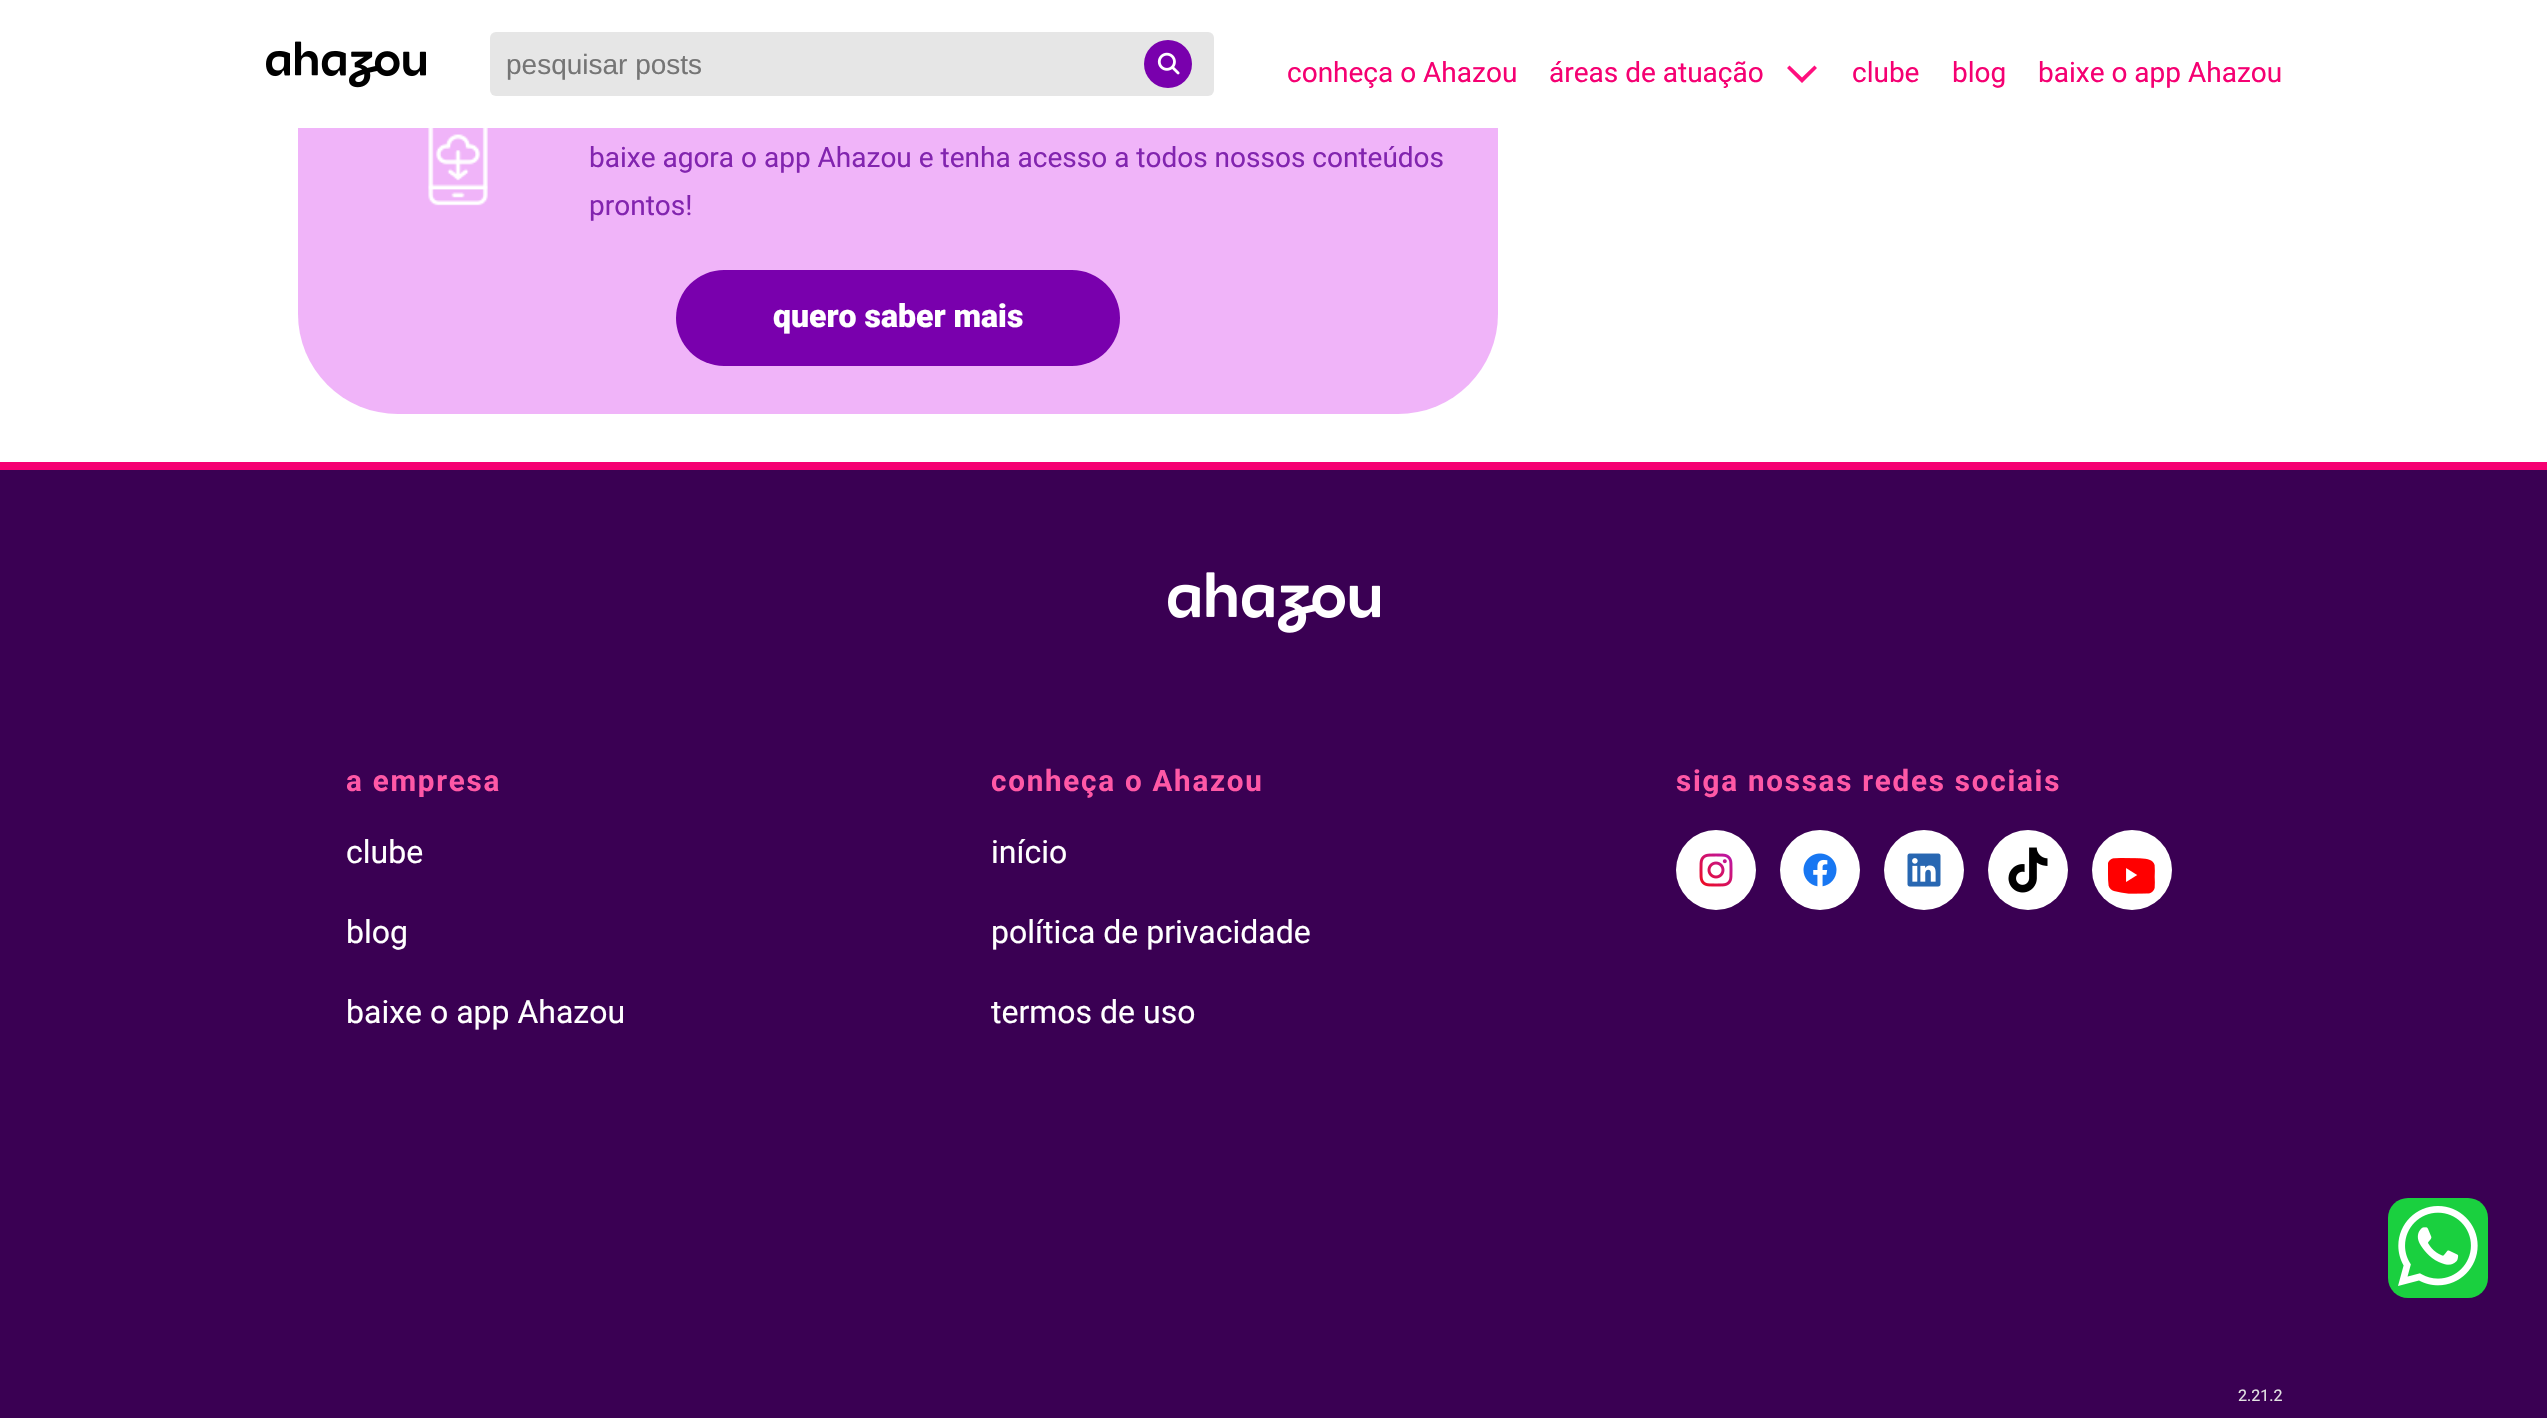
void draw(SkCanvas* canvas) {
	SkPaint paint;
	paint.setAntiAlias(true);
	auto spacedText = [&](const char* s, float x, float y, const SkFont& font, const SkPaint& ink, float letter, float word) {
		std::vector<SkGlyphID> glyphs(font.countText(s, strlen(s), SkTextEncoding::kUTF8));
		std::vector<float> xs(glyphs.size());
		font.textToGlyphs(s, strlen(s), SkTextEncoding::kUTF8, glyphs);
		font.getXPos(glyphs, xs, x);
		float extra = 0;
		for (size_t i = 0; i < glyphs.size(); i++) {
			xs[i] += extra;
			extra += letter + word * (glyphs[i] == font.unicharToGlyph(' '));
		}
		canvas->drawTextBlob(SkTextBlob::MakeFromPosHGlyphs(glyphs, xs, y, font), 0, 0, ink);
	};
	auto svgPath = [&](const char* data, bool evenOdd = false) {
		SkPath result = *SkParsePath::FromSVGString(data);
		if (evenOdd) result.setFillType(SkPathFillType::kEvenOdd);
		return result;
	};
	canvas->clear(0xffffffff);
	paint.setColor(0xfff0b4f9);
	canvas->drawRoundRect(SkRect::MakeXYWH(298, -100, 1200, 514), 100, 100, paint);
	paint.setColor(0xffffffff);
	canvas->drawRect(SkRect::MakeXYWH(298, 0, 1200, 128), paint);
	canvas->drawImageRect(SkImages::DeferredFromEncodedData(SkData::MakeFromFileName("img1.png")), SkRect::MakeXYWH(266, 41, 160, 47), SkSamplingOptions());
	paint.setColor(0xffe6e6e6);
	canvas->drawRoundRect(SkRect::MakeXYWH(490, 32, 724, 64), 6, 6, paint);
	SkFont f1(fontMgr->matchFamilyStyle("Liberation Sans", SkFontStyle::Normal()), 28);
	f1.setSubpixel(true);
	paint.setColor(0xff757575);
	canvas->drawString("pesquisar posts", 506, 74, f1, paint);
	paint.setColor(0xff7900ad);
	canvas->drawCircle(1168, 64, 24, paint);
	canvas->drawImageRect(SkImages::DeferredFromEncodedData(SkData::MakeFromFileName("img2.png")), SkRect::MakeXYWH(1157, 52, 23, 23), SkSamplingOptions());
	SkFont f2(fontMgr->matchFamilyStyle("Roboto", SkFontStyle::Normal()), 28);
	f2.setSubpixel(true);
	paint.setColor(0xfff50072);
	canvas->drawString("conheça o Ahazou", 1287, 82, f2, paint);
	canvas->drawString("áreas de atuação", 1549, 82, f2, paint);
	paint.setColor(0xffff0f7e);
	canvas->drawPath(svgPath("M1789.5 65.5L1787 68L1802 83L1817 68L1814.5 65.5L1802 77.5Z"), paint);
	paint.setColor(0xfff50072);
	canvas->drawString("clube", 1852, 82, f2, paint);
	canvas->drawString("blog", 1952, 82, f2, paint);
	canvas->drawString("baixe o app Ahazou", 2038, 82, f2, paint);
	canvas->drawImageRect(SkImages::DeferredFromEncodedData(SkData::MakeFromFileName("img3.png")), SkRect::MakeXYWH(428, 128, 60, 78), SkSamplingOptions());
	paint.setColor(0xff8224af);
	canvas->drawString("baixe agora o app Ahazou e tenha acesso a todos nossos conteúdos", 589, 167, f2, paint);
	canvas->drawString("prontos!", 589, 215, f2, paint);
	paint.setColor(0xff7900ad);
	canvas->drawRoundRect(SkRect::MakeXYWH(676, 270, 444, 96), 48, 48, paint);
	SkFont f3(fontMgr->matchFamilyStyle("Roboto", SkFontStyle(900, SkFontStyle::kNormal_Width, SkFontStyle::kUpright_Slant)), 32);
	f3.setSubpixel(true);
	paint.setColor(0xffffffff);
	canvas->drawString("quero saber mais", 773, 327, f3, paint);
	paint.setColor(0xff3a0053);
	canvas->drawRect(SkRect::MakeXYWH(0, 470, 2547, 948), paint);
	paint.setColor(0xfff50072);
	canvas->drawRect(SkRect::MakeXYWH(0, 462, 2547, 8), paint);
	canvas->drawImageRect(SkImages::DeferredFromEncodedData(SkData::MakeFromFileName("img4.png")), SkRect::MakeXYWH(1168, 572, 212, 61), SkSamplingOptions());
	SkFont f4(fontMgr->matchFamilyStyle("Roboto", SkFontStyle::Bold()), 29.6);
	f4.setSubpixel(true);
	paint.setColor(0xffff58a6);
	spacedText("a empresa", 346, 791, f4, paint, 1.75, 0);
	SkFont f5(fontMgr->matchFamilyStyle("Roboto", SkFontStyle::Normal()), 32);
	f5.setSubpixel(true);
	paint.setColor(0xffffffff);
	canvas->drawString("clube", 346, 863, f5, paint);
	canvas->drawString("blog", 346, 943, f5, paint);
	canvas->drawString("baixe o app Ahazou", 346, 1023, f5, paint);
	paint.setColor(0xffff58a6);
	spacedText("conheça o Ahazou", 991, 791, f4, paint, 1.75, 0);
	paint.setColor(0xffffffff);
	canvas->drawString("início", 991, 863, f5, paint);
	canvas->drawString("política de privacidade", 991, 943, f5, paint);
	canvas->drawString("termos de uso", 991, 1023, f5, paint);
	paint.setColor(0xffff58a6);
	spacedText("siga nossas redes sociais", 1676, 791, f4, paint, 1.75, 0);
	paint.setColor(0xffffffff);
	canvas->drawCircle(1716, 870, 40, paint);
	canvas->drawImageRect(SkImages::DeferredFromEncodedData(SkData::MakeFromFileName("img5.png")), SkRect::MakeXYWH(1699, 853, 34, 34), SkSamplingOptions());
	canvas->drawCircle(1820, 870, 40, paint);
	canvas->drawImageRect(SkImages::DeferredFromEncodedData(SkData::MakeFromFileName("img6.png")), SkRect::MakeXYWH(1803, 853, 34, 34), SkSamplingOptions());
	canvas->drawCircle(1924, 870, 40, paint);
	canvas->drawImageRect(SkImages::DeferredFromEncodedData(SkData::MakeFromFileName("img7.png")), SkRect::MakeXYWH(1907, 853, 34, 34), SkSamplingOptions());
	canvas->drawCircle(2028, 870, 40, paint);
	canvas->drawImageRect(SkImages::DeferredFromEncodedData(SkData::MakeFromFileName("img8.png")), SkRect::MakeXYWH(2008, 847, 40, 46), SkSamplingOptions());
	canvas->drawCircle(2132, 870, 40, paint);
	canvas->drawImageRect(SkImages::DeferredFromEncodedData(SkData::MakeFromFileName("img9.png")), SkRect::MakeXYWH(2108, 858, 47, 36), SkSamplingOptions());
	paint.setColor(0xff1ad03f);
	canvas->drawRoundRect(SkRect::MakeXYWH(2388, 1198, 100, 100), 20, 20, paint);
	canvas->drawImageRect(SkImages::DeferredFromEncodedData(SkData::MakeFromFileName("img10.png")), SkRect::MakeXYWH(2398, 1206, 80, 80), SkSamplingOptions());
	SkFont f6(fontMgr->matchFamilyStyle("Roboto", SkFontStyle::Normal()), 16);
	f6.setSubpixel(true);
	paint.setColor(0xffe3e3e3);
	canvas->drawString("2.21.2", 2238, 1401, f6, paint);
}
